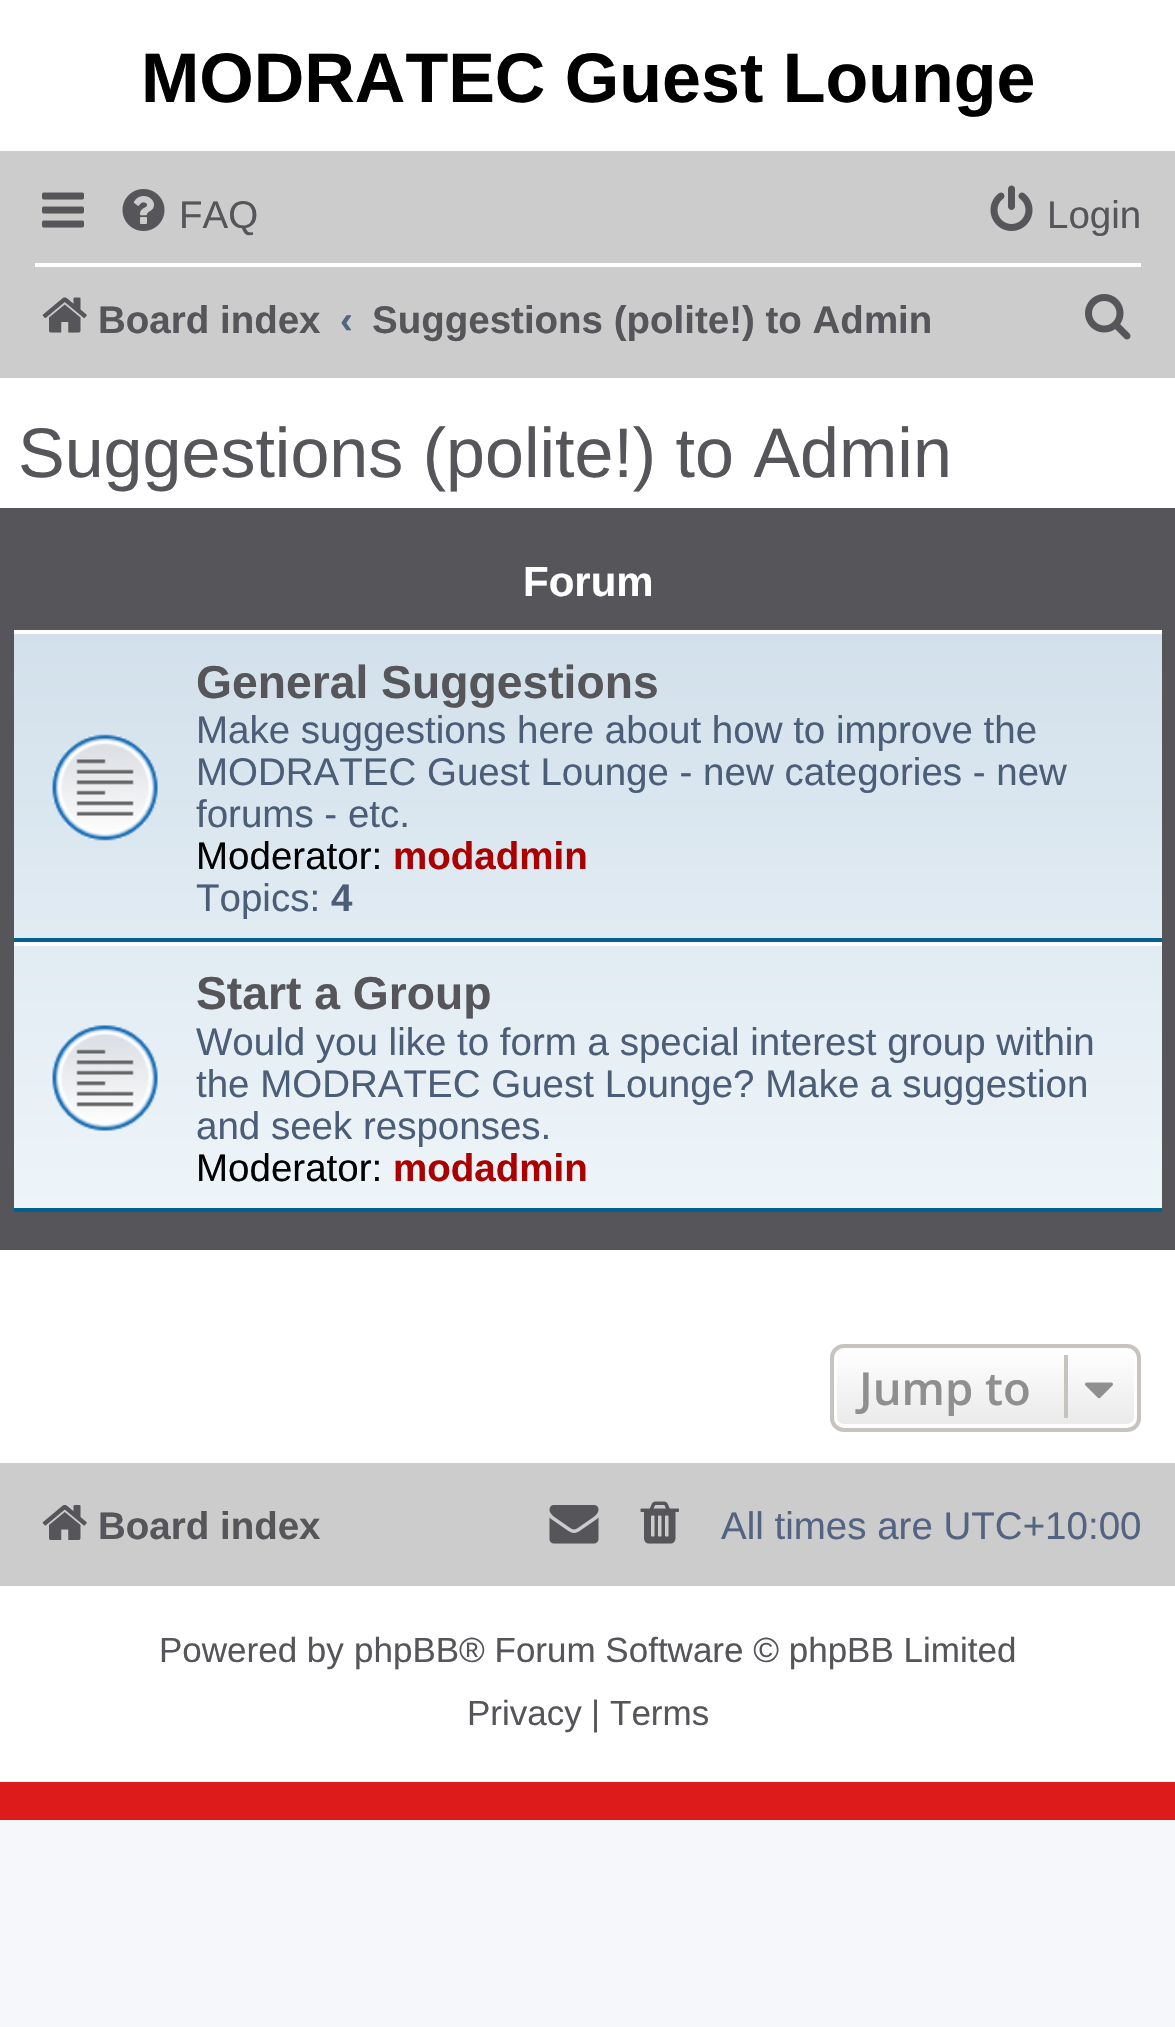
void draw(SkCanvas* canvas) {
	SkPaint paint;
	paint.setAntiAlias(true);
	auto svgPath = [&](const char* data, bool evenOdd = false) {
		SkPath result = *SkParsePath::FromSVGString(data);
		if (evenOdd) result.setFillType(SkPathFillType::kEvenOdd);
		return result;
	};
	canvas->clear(0xfff5f7fa);
	paint.setColor(0xffde1b1b);
	canvas->drawRect(SkRect::MakeXYWH(0, 1782, 1175, 38), paint);
	paint.setColor(0xffffffff);
	canvas->drawRect(SkRect::MakeXYWH(0, 0, 1175, 1782), paint);
	SkFont f1(fontMgr->matchFamilyStyle("Liberation Sans", SkFontStyle::Bold()), 70);
	f1.setSubpixel(true);
	paint.setColor(0xff000000);
	canvas->drawString("MODRATEC Guest Lounge", 141, 102, f1, paint);
	paint.setColor(0xffcccccc);
	canvas->drawRect(SkRect::MakeXYWH(0, 151, 1175, 227), paint);
	canvas->drawImageRect(SkImages::DeferredFromEncodedData(SkData::MakeFromFileName("img1.png")), SkRect::MakeXYWH(42, 192, 42, 36), SkSamplingOptions());
	canvas->drawImageRect(SkImages::DeferredFromEncodedData(SkData::MakeFromFileName("img2.png")), SkRect::MakeXYWH(122, 189, 43, 42), SkSamplingOptions());
	SkFont f2(fontMgr->matchFamilyStyle("Liberation Sans", SkFontStyle::Normal()), 38.5);
	f2.setSubpixel(true);
	paint.setColor(0xff55555a);
	canvas->drawString("FAQ", 179, 228, f2, paint);
	canvas->drawImageRect(SkImages::DeferredFromEncodedData(SkData::MakeFromFileName("img3.png")), SkRect::MakeXYWH(990, 185, 43, 46), SkSamplingOptions());
	canvas->drawString("Login", 1047, 228, f2, paint);
	paint.setColor(0xffffffff);
	canvas->drawRect(SkRect::MakeXYWH(35, 263, 1106, 4), paint);
	canvas->drawImageRect(SkImages::DeferredFromEncodedData(SkData::MakeFromFileName("img4.png")), SkRect::MakeXYWH(42, 297, 45, 36), SkSamplingOptions());
	SkFont f3(fontMgr->matchFamilyStyle("Liberation Sans", SkFontStyle::Bold()), 38.5);
	f3.setSubpixel(true);
	paint.setColor(0xff55555a);
	canvas->drawString("Board index", 98, 333, f3, paint);
	paint.setColor(0xff536482);
	canvas->drawString("‹", 340, 333, f3, paint);
	paint.setColor(0xff55555a);
	canvas->drawString("Suggestions (polite!) to Admin", 372, 333, f3, paint);
	canvas->drawImageRect(SkImages::DeferredFromEncodedData(SkData::MakeFromFileName("img5.png")), SkRect::MakeXYWH(1085, 294, 46, 46), SkSamplingOptions());
	SkFont f4(fontMgr->matchFamilyStyle("Liberation Sans", SkFontStyle::Normal()), 70);
	f4.setSubpixel(true);
	canvas->drawString("Suggestions (polite!) to Admin", 18, 477, f4, paint);
	canvas->drawRect(SkRect::MakeXYWH(0, 508, 1175, 742), paint);
	SkFont f5(fontMgr->matchFamilyStyle("Liberation Sans", SkFontStyle::Bold()), 42);
	f5.setSubpixel(true);
	paint.setColor(0xffffffff);
	canvas->drawString("Forum", 523, 596, f5, paint);
	{
		const SkColor colors[] = {0xffd2e0eb, 0xffeef5f9};
		const float stops[] = {0, 1};
		const SkPoint ends[] = {{588, 630}, {588, 1211}};
		paint.setShader(SkGradientShader::MakeLinear(ends, colors, stops, 2, SkTileMode::kClamp));
		paint.setAlpha(255);
	}
	canvas->drawRect(SkRect::MakeXYWH(14, 634, 1148, 574), paint);
	paint.setShader(nullptr);
	paint.setColor(0xffffffff);
	canvas->drawRect(SkRect::MakeXYWH(14, 630, 1148, 4), paint);
	paint.setColor(0xff00608f);
	canvas->drawRect(SkRect::MakeXYWH(14, 938, 1148, 4), paint);
	canvas->drawImageRect(SkImages::DeferredFromEncodedData(SkData::MakeFromFileName("img6.png")), SkRect::MakeXYWH(52, 734, 106, 107), SkSamplingOptions());
	SkFont f6(fontMgr->matchFamilyStyle("Liberation Sans", SkFontStyle::Bold()), 46.25);
	f6.setSubpixel(true);
	paint.setColor(0xff55555a);
	canvas->drawString("General Suggestions", 196, 698, f6, paint);
	paint.setColor(0xff4c5d77);
	canvas->drawString("Make suggestions here about how to improve the", 196, 743, f2, paint);
	canvas->drawString("MODRATEC Guest Lounge - new categories - new", 196, 785, f2, paint);
	canvas->drawString("forums - etc.", 196, 827, f2, paint);
	paint.setColor(0xff000000);
	canvas->drawString("Moderator:", 196, 869, f2, paint);
	paint.setColor(0xffaa0000);
	canvas->drawString("modadmin", 393, 869, f3, paint);
	paint.setColor(0xff4c5d77);
	canvas->drawString("Topics:", 196, 911, f2, paint);
	canvas->drawString("4", 331, 911, f3, paint);
	paint.setColor(0xffffffff);
	canvas->drawRect(SkRect::MakeXYWH(14, 942, 1148, 4), paint);
	paint.setColor(0xff00608f);
	canvas->drawRect(SkRect::MakeXYWH(14, 1208, 1148, 4), paint);
	canvas->drawImageRect(SkImages::DeferredFromEncodedData(SkData::MakeFromFileName("img7.png")), SkRect::MakeXYWH(52, 1025, 106, 106), SkSamplingOptions());
	paint.setColor(0xff55555a);
	canvas->drawString("Start a Group", 196, 1009, f6, paint);
	paint.setColor(0xff4c5d77);
	canvas->drawString("Would you like to form a special interest group within", 196, 1055, f2, paint);
	canvas->drawString("the MODRATEC Guest Lounge? Make a suggestion", 196, 1097, f2, paint);
	canvas->drawString("and seek responses.", 196, 1139, f2, paint);
	paint.setColor(0xff000000);
	canvas->drawString("Moderator:", 196, 1181, f2, paint);
	paint.setColor(0xffaa0000);
	canvas->drawString("modadmin", 393, 1181, f3, paint);
	canvas->save();
	canvas->clipPath(svgPath("M844 1344H1127C1134.5 1344 1141 1350.5 1141 1358V1418C1141 1425.5 1134.5 1432 1127 1432H844C836.5 1432 830 1425.5 830 1418V1358C830 1350.5 836.5 1344 844 1344Z"), true);
	{
		const SkColor colors[] = {0xffffffff, 0xffe9e9e9};
		const float stops[] = {0, 1};
		const SkPoint ends[] = {{985, 1348}, {985, 1428}};
		paint.setShader(SkGradientShader::MakeLinear(ends, colors, stops, 2, SkTileMode::kClamp));
		paint.setAlpha(255);
	}
	canvas->drawRect(SkRect::MakeXYWH(830, 1348, 311, 80), paint);
	canvas->restore();
	paint.setStroke(true);
	paint.setStrokeWidth(4);
	paint.setShader(nullptr);
	paint.setColor(0xffffffff);
	canvas->drawRoundRect(SkRect::MakeXYWH(835, 1350, 301, 76), 9, 9, paint);
	paint.setColor(0xffc7c3bf);
	canvas->drawRoundRect(SkRect::MakeXYWH(832, 1346, 307, 84), 12, 12, paint);
	SkFont f7(fontMgr->matchFamilyStyle("Open Sans", SkFontStyle(600, SkFontStyle::kNormal_Width, SkFontStyle::kUpright_Slant)), 45.5);
	f7.setSubpixel(true);
	paint.setStroke(false);
	paint.setColor(0xff8f8f8f);
	canvas->drawString("Jump to", 859, 1405, f7, paint);
	paint.setColor(0xffc7c3bf);
	canvas->drawRect(SkRect::MakeXYWH(1064, 1355, 4, 63), paint);
	canvas->drawImageRect(SkImages::DeferredFromEncodedData(SkData::MakeFromFileName("img8.png")), SkRect::MakeXYWH(1085, 1382, 28, 17), SkSamplingOptions());
	paint.setColor(0xffcccccc);
	canvas->drawRect(SkRect::MakeXYWH(0, 1463, 1175, 123), paint);
	canvas->drawImageRect(SkImages::DeferredFromEncodedData(SkData::MakeFromFileName("img9.png")), SkRect::MakeXYWH(42, 1504, 45, 36), SkSamplingOptions());
	paint.setColor(0xff55555a);
	canvas->drawString("Board index", 98, 1539, f3, paint);
	canvas->drawImageRect(SkImages::DeferredFromEncodedData(SkData::MakeFromFileName("img10.png")), SkRect::MakeXYWH(549, 1505, 50, 39), SkSamplingOptions());
	canvas->drawImageRect(SkImages::DeferredFromEncodedData(SkData::MakeFromFileName("img11.png")), SkRect::MakeXYWH(640, 1501, 39, 43), SkSamplingOptions());
	paint.setColor(0xff536482);
	canvas->drawString("All times are UTC+10:00", 721, 1539, f2, paint);
	SkFont f8(fontMgr->matchFamilyStyle("Liberation Sans", SkFontStyle::Normal()), 35);
	f8.setSubpixel(true);
	paint.setColor(0xff55555a);
	canvas->drawString("Powered by", 159, 1662, f8, paint);
	canvas->drawString("phpBB", 354, 1662, f8, paint);
	canvas->drawString("® Forum Software © phpBB Limited", 459, 1662, f8, paint);
	canvas->drawString("Privacy", 467, 1725, f8, paint);
	canvas->drawString("|", 591, 1725, f8, paint);
	canvas->drawString("Terms", 610, 1725, f8, paint);
}
